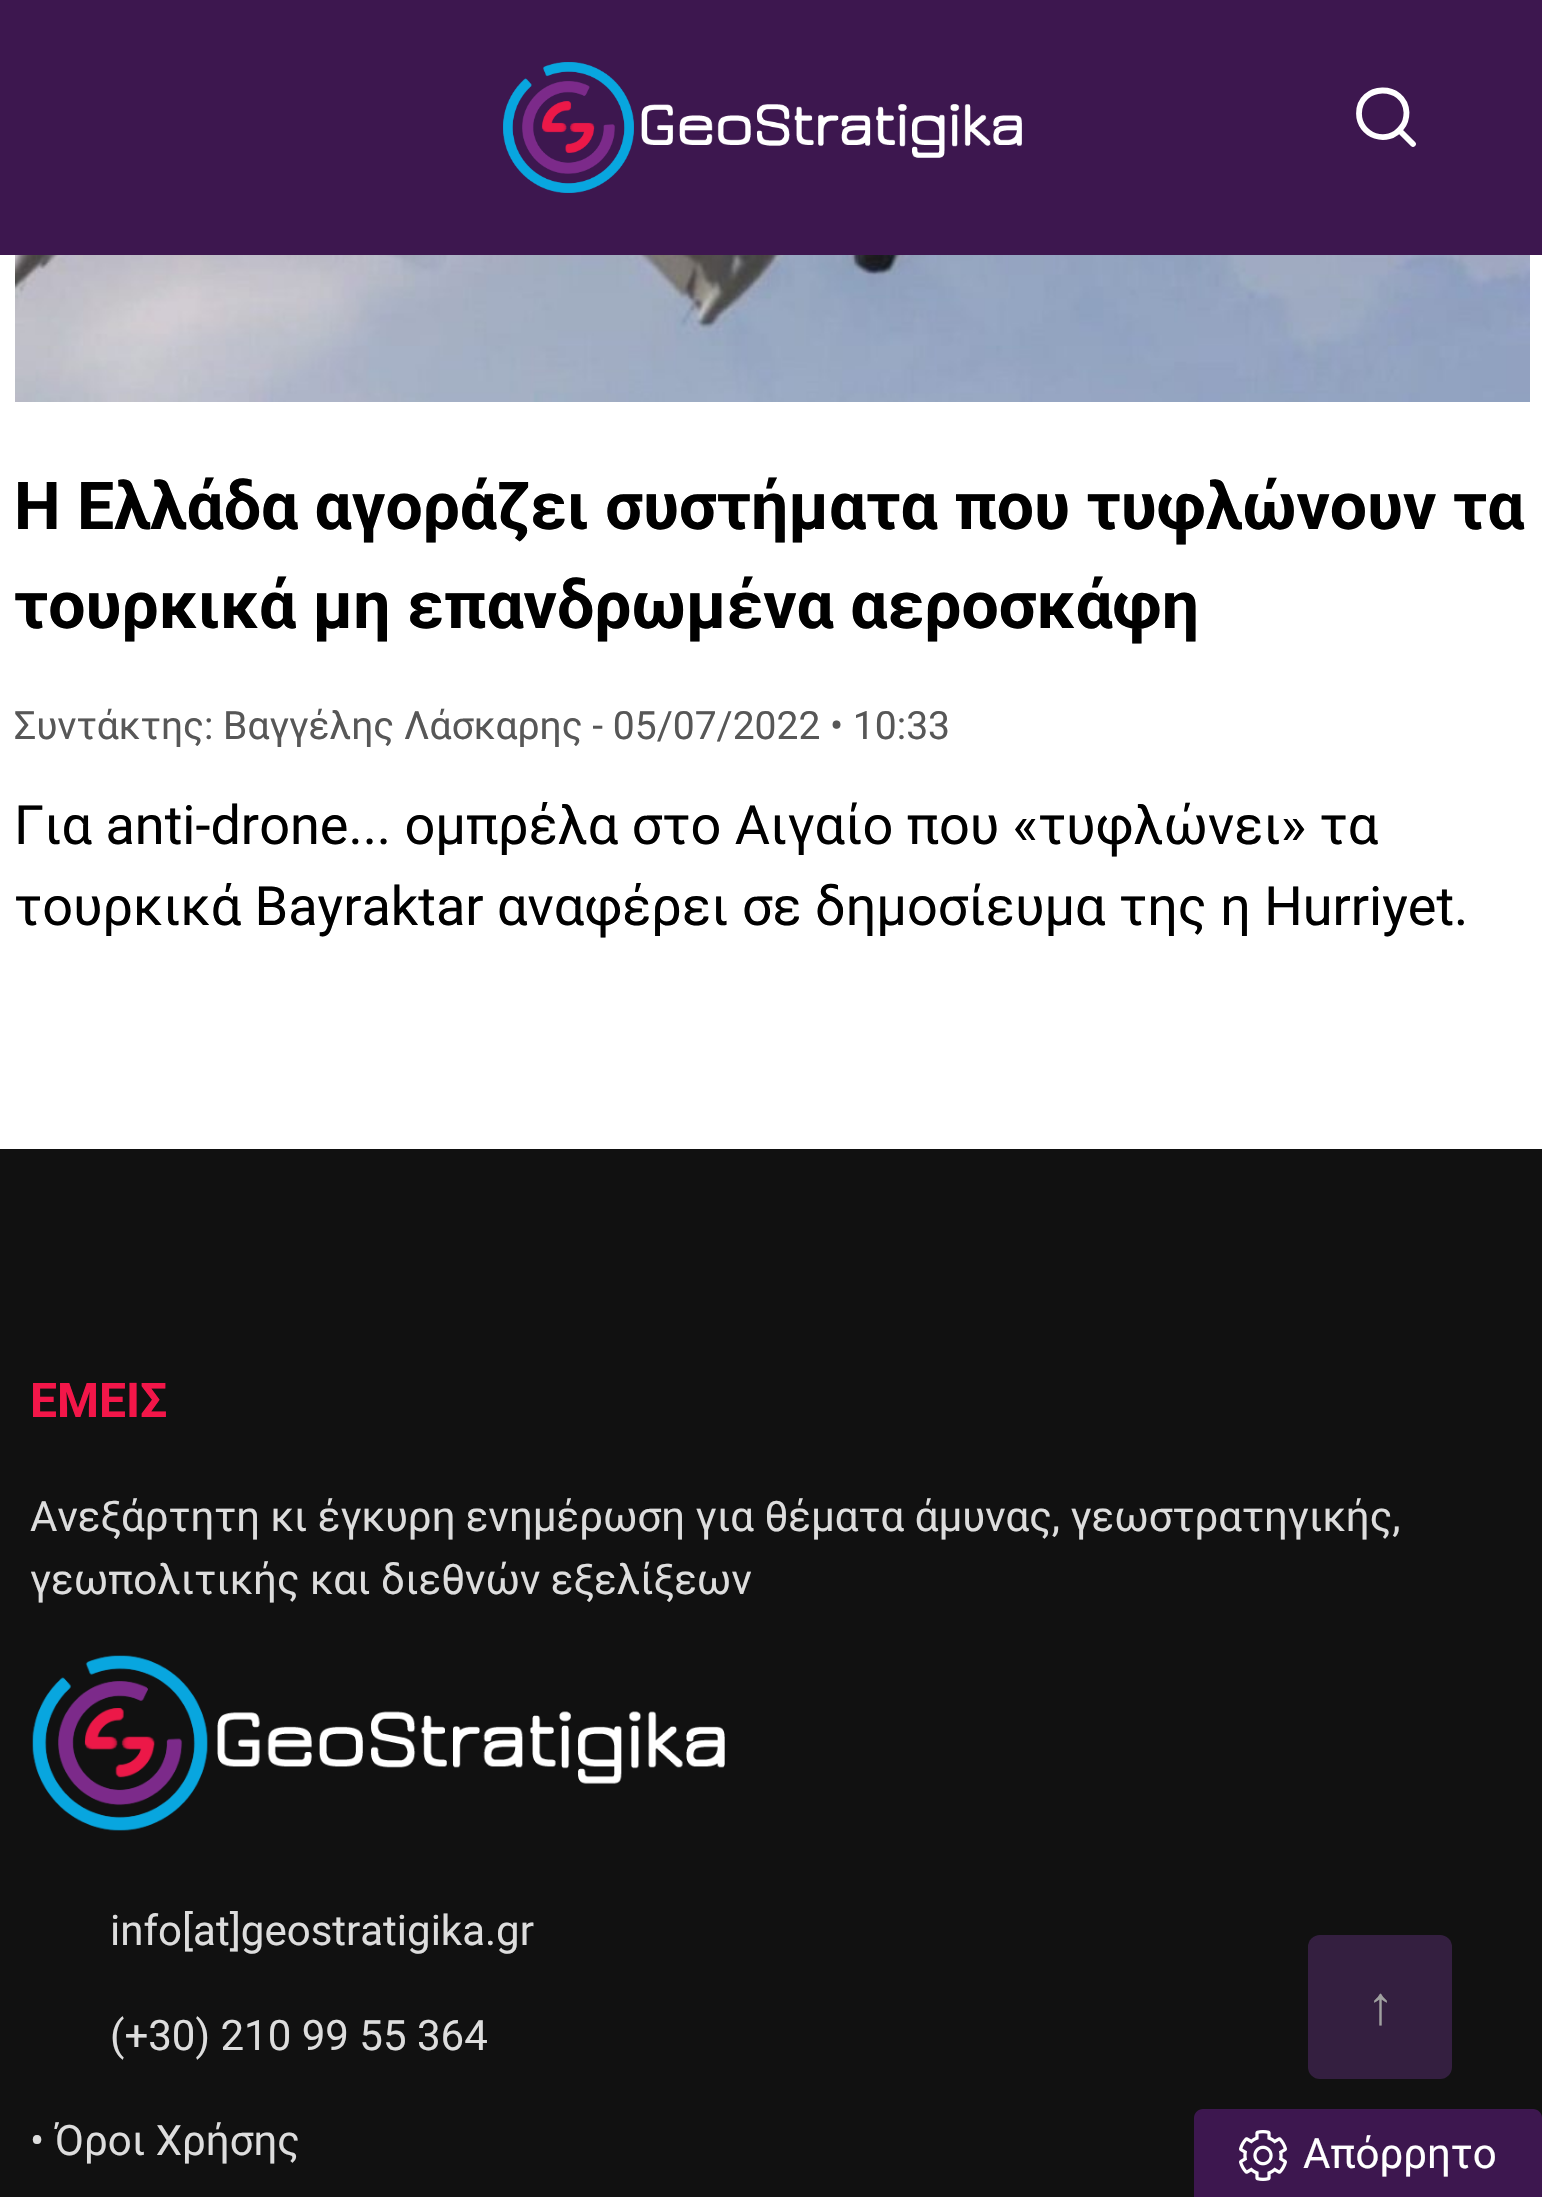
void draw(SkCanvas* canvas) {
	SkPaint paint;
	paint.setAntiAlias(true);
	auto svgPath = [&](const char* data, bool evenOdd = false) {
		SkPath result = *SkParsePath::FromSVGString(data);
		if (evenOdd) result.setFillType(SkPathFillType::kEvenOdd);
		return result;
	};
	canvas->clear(0xffffffff);
	paint.setColor(0xff3d174f);
	canvas->drawRect(SkRect::MakeXYWH(0, 0, 1542, 255), paint);
	canvas->drawImageRect(SkImages::DeferredFromEncodedData(SkData::MakeFromFileName("img1.png")), SkRect::MakeXYWH(503, 62, 519, 131), SkSamplingOptions());
	paint.setStroke(true);
	paint.setStrokeWidth(5.8);
	paint.setStrokeCap(SkPaint::kRound_Cap);
	paint.setStrokeJoin(SkPaint::kRound_Join);
	paint.setColor(0xffffffff);
	canvas->drawPath(svgPath("M1359 113.5C1359 83.5 1405 82.5 1406.5 112.5C1406.5 118 1405 123.5 1401.5 127.5C1388 146 1359 136 1359 113.5ZM1399.5 130.5L1413 144"), paint);
	canvas->drawImageRect(SkImages::DeferredFromEncodedData(SkData::MakeFromFileName("img2.png")), SkRect::MakeXYWH(15, 255, 1515, 147), SkSamplingOptions());
	SkFont f1(fontMgr->matchFamilyStyle("Roboto", SkFontStyle::Bold()), 66);
	f1.setSubpixel(true);
	paint.setStroke(false);
	paint.setColor(0xff000000);
	canvas->drawString("Η Ελλάδα αγοράζει συστήματα που τυφλώνουν τα", 14, 529, f1, paint);
	canvas->save();
	canvas->clipRect(SkRect::MakeXYWH(15, 456, 1515, 198));
	canvas->drawString("τουρκικά μη επανδρωμένα αεροσκάφη", 14, 628, f1, paint);
	canvas->restore();
	SkFont f2(fontMgr->matchFamilyStyle("Roboto", SkFontStyle::Normal()), 39);
	f2.setSubpixel(true);
	paint.setColor(0xff575757);
	canvas->drawString("Συντάκτης: Βαγγέλης Λάσκαρης - 05/07/2022 • 10:33", 14, 739, f2, paint);
	SkFont f3(fontMgr->matchFamilyStyle("Roboto", SkFontStyle::Normal()), 54);
	f3.setSubpixel(true);
	paint.setColor(0xff000000);
	canvas->drawString("Για anti-drone... ομπρέλα στο Αιγαίο που «τυφλώνει» τα", 14, 844, f3, paint);
	canvas->drawString("τουρκικά Bayraktar αναφέρει σε δημοσίευμα της η Hurriyet.", 14, 925, f3, paint);
	paint.setColor(0xff111111);
	canvas->drawRect(SkRect::MakeXYWH(0, 1149, 1542, 1048), paint);
	SkFont f4(fontMgr->matchFamilyStyle("Roboto", SkFontStyle::Bold()), 48);
	f4.setSubpixel(true);
	paint.setColor(0xfff31649);
	canvas->drawString("ΕΜΕΙΣ", 30, 1417, f4, paint);
	SkFont f5(fontMgr->matchFamilyStyle("Roboto", SkFontStyle::Normal()), 42);
	f5.setSubpixel(true);
	paint.setColor(0xffdddddd);
	canvas->drawString("Ανεξάρτητη κι έγκυρη ενημέρωση για θέματα άμυνας, γεωστρατηγικής,", 30, 1531, f5, paint);
	canvas->drawString("γεωπολιτικής και διεθνών εξελίξεων", 30, 1594, f5, paint);
	canvas->drawImageRect(SkImages::DeferredFromEncodedData(SkData::MakeFromFileName("img3.png")), SkRect::MakeXYWH(32, 1655, 693, 176), SkSamplingOptions());
	canvas->drawString("info[at]geostratigika.gr", 110, 1945, f5, paint);
	canvas->drawString("(+30) 210 99 55 364", 110, 2050, f5, paint);
	canvas->drawString("• Όροι Χρήσης", 30, 2155, f5, paint);
	paint.setColor(0xff341f40);
	canvas->drawRoundRect(SkRect::MakeXYWH(1308, 1935, 144, 144), 12, 12, paint);
	SkFont f6(fontMgr->matchFamilyStyle("Liberation Sans", SkFontStyle::Normal()), 54);
	f6.setSubpixel(true);
	paint.setColor(0xffa0a0a0);
	canvas->drawString("↑", 1367, 2024, f6, paint);
	paint.setColor(0xff3d174f);
	canvas->drawPath(svgPath("M1203 2109H1533C1538 2109 1542 2113 1542 2118V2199H1194V2118C1194 2113 1198 2109 1203 2109Z"), paint);
	canvas->drawImageRect(SkImages::DeferredFromEncodedData(SkData::MakeFromFileName("img4.png")), SkRect::MakeXYWH(1239, 2130, 48, 51), SkSamplingOptions());
	paint.setColor(0xffffffff);
	canvas->drawString("Απόρρητο", 1303, 2168, f5, paint);
}
